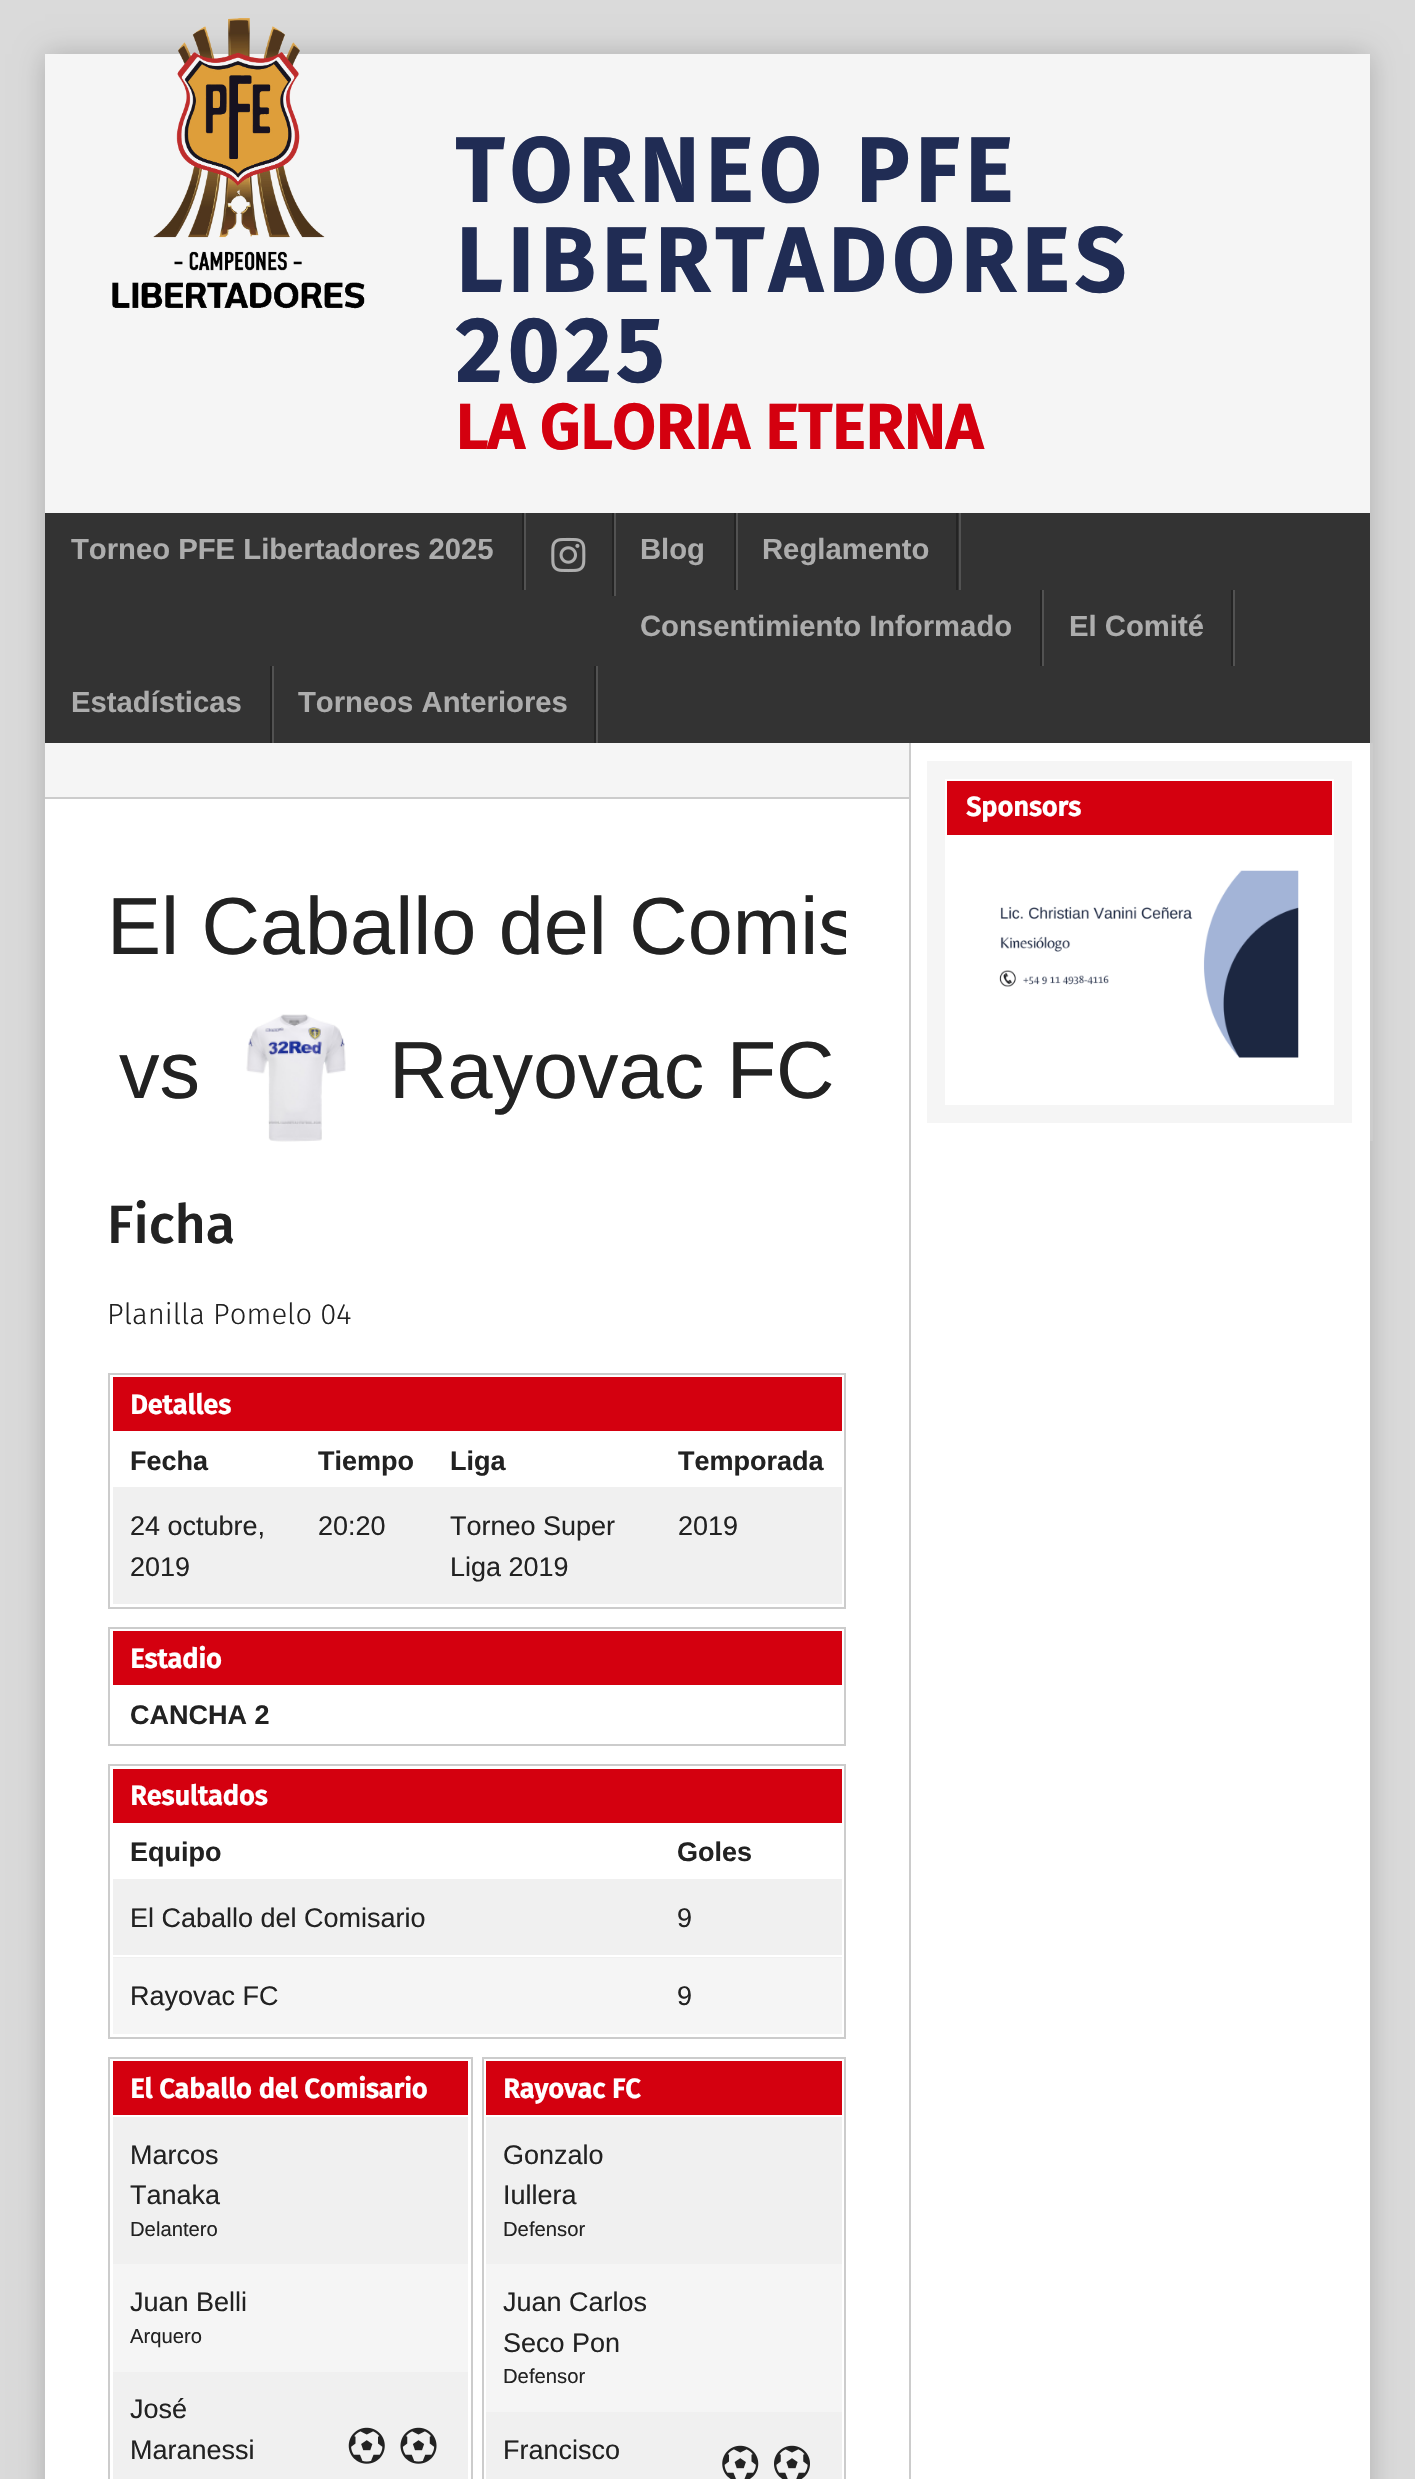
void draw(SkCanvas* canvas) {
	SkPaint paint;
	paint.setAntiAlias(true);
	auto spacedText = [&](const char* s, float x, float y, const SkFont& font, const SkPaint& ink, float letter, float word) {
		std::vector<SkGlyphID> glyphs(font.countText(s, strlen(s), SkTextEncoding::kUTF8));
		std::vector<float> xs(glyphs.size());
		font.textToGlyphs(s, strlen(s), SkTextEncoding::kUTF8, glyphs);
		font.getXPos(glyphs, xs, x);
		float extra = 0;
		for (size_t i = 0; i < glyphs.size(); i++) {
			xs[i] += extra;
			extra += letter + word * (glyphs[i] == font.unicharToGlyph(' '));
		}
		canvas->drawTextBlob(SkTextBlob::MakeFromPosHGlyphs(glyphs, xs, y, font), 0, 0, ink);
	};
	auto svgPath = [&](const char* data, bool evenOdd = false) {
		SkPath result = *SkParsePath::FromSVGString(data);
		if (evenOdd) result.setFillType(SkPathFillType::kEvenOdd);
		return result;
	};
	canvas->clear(0xffdadada);
	paint.setColor(0x33000000);
	paint.setMaskFilter(SkMaskFilter::MakeBlur(kNormal_SkBlurStyle, 13.5));
	canvas->drawRect(SkRect::MakeXYWH(45, 54, 1325, 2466), paint);
	paint.setMaskFilter(nullptr);
	paint.setColor(0xfff5f5f5);
	canvas->drawRect(SkRect::MakeXYWH(45, 54, 1325, 459), paint);
	canvas->drawImageRect(SkImages::DeferredFromEncodedData(SkData::MakeFromFileName("img1.png")), SkRect::MakeXYWH(112, 18, 253, 291), SkSamplingOptions());
	SkFont f1(fontMgr->matchFamilyStyle("Fira Sans", SkFontStyle::Bold()), 90);
	f1.setSubpixel(true);
	paint.setColor(0xff202c54);
	spacedText("TORNEO PFE", 455, 202, f1, paint, 6, 0);
	spacedText("LIBERTADORES", 455, 292, f1, paint, 6, 0);
	spacedText("2025", 455, 382, f1, paint, 6, 0);
	SkFont f2(fontMgr->matchFamilyStyle("Fira Sans", SkFontStyle::Bold()), 63);
	f2.setSubpixel(true);
	paint.setColor(0xffd4000f);
	canvas->drawString("LA GLORIA ETERNA", 455, 449, f2, paint);
	paint.setColor(0xff333333);
	canvas->drawRect(SkRect::MakeXYWH(45, 513, 1325, 230), paint);
	paint.setColor(0xff525252);
	canvas->drawRect(SkRect::MakeXYWH(524, 513, 2, 77), paint);
	paint.setColor(0xff242424);
	canvas->drawRect(SkRect::MakeXYWH(522, 513, 2, 77), paint);
	SkFont f3(fontMgr->matchFamilyStyle("Liberation Sans", SkFontStyle::Bold()), 29.25);
	f3.setSubpixel(true);
	paint.setColor(0xffadadad);
	canvas->drawString("Torneo PFE Libertadores 2025", 71, 559, f3, paint);
	paint.setColor(0xff525252);
	canvas->drawRect(SkRect::MakeXYWH(614, 513, 2, 83), paint);
	paint.setColor(0xff242424);
	canvas->drawRect(SkRect::MakeXYWH(612, 513, 2, 83), paint);
	canvas->drawImageRect(SkImages::DeferredFromEncodedData(SkData::MakeFromFileName("img2.png")), SkRect::MakeXYWH(551, 537, 35, 36), SkSamplingOptions());
	paint.setColor(0xff525252);
	canvas->drawRect(SkRect::MakeXYWH(736, 513, 2, 77), paint);
	paint.setColor(0xff242424);
	canvas->drawRect(SkRect::MakeXYWH(734, 513, 2, 77), paint);
	paint.setColor(0xffadadad);
	canvas->drawString("Blog", 640, 559, f3, paint);
	paint.setColor(0xff525252);
	canvas->drawRect(SkRect::MakeXYWH(959, 513, 2, 77), paint);
	paint.setColor(0xff242424);
	canvas->drawRect(SkRect::MakeXYWH(956, 513, 2, 77), paint);
	paint.setColor(0xffadadad);
	canvas->drawString("Reglamento", 762, 559, f3, paint);
	paint.setColor(0xff525252);
	canvas->drawRect(SkRect::MakeXYWH(1042, 590, 2, 76), paint);
	paint.setColor(0xff242424);
	canvas->drawRect(SkRect::MakeXYWH(1040, 590, 2, 76), paint);
	paint.setColor(0xffadadad);
	canvas->drawString("Consentimiento Informado", 640, 636, f3, paint);
	paint.setColor(0xff525252);
	canvas->drawRect(SkRect::MakeXYWH(1233, 590, 2, 76), paint);
	paint.setColor(0xff242424);
	canvas->drawRect(SkRect::MakeXYWH(1231, 590, 2, 76), paint);
	paint.setColor(0xffadadad);
	canvas->drawString("El Comité", 1069, 636, f3, paint);
	paint.setColor(0xff525252);
	canvas->drawRect(SkRect::MakeXYWH(272, 666, 2, 77), paint);
	paint.setColor(0xff242424);
	canvas->drawRect(SkRect::MakeXYWH(270, 666, 2, 77), paint);
	paint.setColor(0xffadadad);
	canvas->drawString("Estadísticas", 71, 712, f3, paint);
	paint.setColor(0xff525252);
	canvas->drawRect(SkRect::MakeXYWH(596, 666, 2, 77), paint);
	paint.setColor(0xff242424);
	canvas->drawRect(SkRect::MakeXYWH(594, 666, 2, 77), paint);
	paint.setColor(0xffadadad);
	canvas->drawString("Torneos Anteriores", 298, 712, f3, paint);
	paint.setColor(0xffffffff);
	canvas->drawRect(SkRect::MakeXYWH(45, 743, 1325, 1736), paint);
	paint.setColor(0xffcccccc);
	canvas->drawPath(svgPath("M911 1141H1373V743H1370V1141Z"), paint);
	paint.setColor(0xffd4000f);
	canvas->drawRect(SkRect::MakeXYWH(947, 781, 385, 54), paint);
	canvas->drawImageRect(SkImages::DeferredFromEncodedData(SkData::MakeFromFileName("img3.png")), SkRect::MakeXYWH(999, 870, 300, 188), SkSamplingOptions());
	paint.setStroke(true);
	paint.setStrokeWidth(18);
	paint.setColor(0xfff5f5f5);
	canvas->drawRect(SkRect::MakeXYWH(936, 770, 407, 344), paint);
	SkFont f4(fontMgr->matchFamilyStyle("Fira Sans", SkFontStyle::Bold()), 27);
	f4.setSubpixel(true);
	paint.setStroke(false);
	paint.setColor(0xffffffff);
	canvas->drawString("Sponsors", 966, 816, f4, paint);
	paint.setColor(0xffcccccc);
	canvas->drawPath(svgPath("M47 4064H911V743H909V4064Z"), paint);
	paint.setColor(0xfff5f5f5);
	canvas->drawRect(SkRect::MakeXYWH(45, 743, 864, 54), paint);
	paint.setColor(0xffcccccc);
	canvas->drawRect(SkRect::MakeXYWH(45, 797, 864, 2), paint);
	canvas->save();
	canvas->clipRect(SkRect::MakeXYWH(108, 862, 738, 288));
	SkFont f5(fontMgr->matchFamilyStyle("Liberation Sans", SkFontStyle::Normal()), 81);
	f5.setSubpixel(true);
	paint.setColor(0xff222222);
	canvas->drawString("El Caballo del Comis", 107, 954, f5, paint);
	canvas->restore();
	canvas->drawString("vs", 119, 1098, f5, paint);
	canvas->drawImageRect(SkImages::DeferredFromEncodedData(SkData::MakeFromFileName("img4.png")), SkRect::MakeXYWH(246, 1014, 100, 128), SkSamplingOptions());
	canvas->drawString("Rayovac FC", 389, 1098, f5, paint);
	SkFont f6(fontMgr->matchFamilyStyle("Fira Sans", SkFontStyle(500, SkFontStyle::kNormal_Width, SkFontStyle::kUpright_Slant)), 54);
	f6.setSubpixel(true);
	canvas->drawString("Ficha", 107, 1243, f6, paint);
	SkFont f7(fontMgr->matchFamilyStyle("Fira Sans", SkFontStyle(300, SkFontStyle::kNormal_Width, SkFontStyle::kUpright_Slant)), 29.25);
	f7.setSubpixel(true);
	canvas->drawString("Planilla Pomelo 04", 107, 1324, f7, paint);
	paint.setStroke(true);
	paint.setStrokeWidth(2);
	paint.setColor(0xffcccccc);
	canvas->drawRect(SkRect::MakeXYWH(109, 1374, 736, 234), paint);
	paint.setStroke(false);
	paint.setColor(0xffd4000f);
	canvas->drawRect(SkRect::MakeXYWH(113, 1377, 729, 54), paint);
	paint.setColor(0xffffffff);
	canvas->drawString("Detalles", 130, 1414, f4, paint);
	SkFont f8(fontMgr->matchFamilyStyle("Liberation Sans", SkFontStyle::Bold()), 27);
	f8.setSubpixel(true);
	paint.setColor(0xff222222);
	canvas->drawString("Fecha", 130, 1470, f8, paint);
	canvas->drawString("Tiempo", 318, 1470, f8, paint);
	canvas->drawString("Liga", 450, 1470, f8, paint);
	canvas->drawString("Temporada", 678, 1470, f8, paint);
	paint.setColor(0xfff0f0f0);
	canvas->drawRect(SkRect::MakeXYWH(113, 1487, 729, 117), paint);
	SkFont f9(fontMgr->matchFamilyStyle("Liberation Sans", SkFontStyle::Normal()), 27);
	f9.setSubpixel(true);
	paint.setColor(0xff222222);
	canvas->drawString("24 octubre,", 130, 1535, f9, paint);
	canvas->drawString("2019", 130, 1576, f9, paint);
	canvas->drawString("20:20", 318, 1535, f9, paint);
	canvas->drawString("Torneo Super", 450, 1535, f9, paint);
	canvas->drawString("Liga 2019", 450, 1576, f9, paint);
	canvas->drawString("2019", 678, 1535, f9, paint);
	paint.setStroke(true);
	paint.setColor(0xffcccccc);
	canvas->drawRect(SkRect::MakeXYWH(109, 1628, 736, 117), paint);
	paint.setStroke(false);
	paint.setColor(0xffd4000f);
	canvas->drawRect(SkRect::MakeXYWH(113, 1631, 729, 54), paint);
	paint.setColor(0xffffffff);
	canvas->drawString("Estadio", 130, 1668, f4, paint);
	paint.setColor(0xff222222);
	canvas->drawString("CANCHA 2", 130, 1724, f8, paint);
	paint.setStroke(true);
	paint.setColor(0xffcccccc);
	canvas->drawRect(SkRect::MakeXYWH(109, 1765, 736, 273), paint);
	paint.setStroke(false);
	paint.setColor(0xffd4000f);
	canvas->drawRect(SkRect::MakeXYWH(113, 1769, 729, 54), paint);
	paint.setColor(0xffffffff);
	canvas->drawString("Resultados", 130, 1805, f4, paint);
	paint.setColor(0xff222222);
	canvas->drawString("Equipo", 130, 1861, f8, paint);
	canvas->drawString("Goles", 677, 1861, f8, paint);
	paint.setColor(0xfff0f0f0);
	canvas->drawRect(SkRect::MakeXYWH(113, 1879, 729, 79), paint);
	paint.setColor(0xff222222);
	canvas->drawString("El Caballo del Comisario", 130, 1927, f9, paint);
	paint.setColor(0xffffffff);
	canvas->drawRect(SkRect::MakeXYWH(113, 1955, 729, 2), paint);
	paint.setColor(0xff222222);
	canvas->drawString("9", 677, 1927, f9, paint);
	paint.setColor(0xfff5f5f5);
	canvas->drawRect(SkRect::MakeXYWH(113, 1958, 729, 76), paint);
	paint.setColor(0xff222222);
	canvas->drawString("Rayovac FC", 130, 2005, f9, paint);
	canvas->drawString("9", 677, 2005, f9, paint);
	paint.setStroke(true);
	paint.setColor(0xffcccccc);
	canvas->drawRect(SkRect::MakeXYWH(109, 2058, 363, 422), paint);
	paint.setStroke(false);
	paint.setColor(0xffd4000f);
	canvas->drawRect(SkRect::MakeXYWH(113, 2061, 355, 54), paint);
	paint.setColor(0xffffffff);
	canvas->drawString("El Caballo del Comisario", 130, 2098, f4, paint);
	paint.setColor(0xfff0f0f0);
	canvas->drawRect(SkRect::MakeXYWH(113, 2117, 355, 147), paint);
	paint.setColor(0xff222222);
	canvas->drawString("Marcos", 130, 2164, f9, paint);
	canvas->drawString("Tanaka", 130, 2204, f9, paint);
	SkFont f10(fontMgr->matchFamilyStyle("Liberation Sans", SkFontStyle::Normal()), 20.25);
	f10.setSubpixel(true);
	canvas->drawString("Delantero", 130, 2236, f10, paint);
	paint.setColor(0xfff5f5f5);
	canvas->drawRect(SkRect::MakeXYWH(113, 2264, 355, 108), paint);
	paint.setColor(0xff222222);
	canvas->drawString("Juan Belli", 130, 2311, f9, paint);
	canvas->drawString("Arquero", 130, 2343, f10, paint);
	paint.setColor(0xfff0f0f0);
	canvas->drawRect(SkRect::MakeXYWH(113, 2372, 355, 107), paint);
	paint.setColor(0xff222222);
	canvas->drawString("José", 130, 2418, f9, paint);
	canvas->drawString("Maranessi", 130, 2459, f9, paint);
	canvas->drawImageRect(SkImages::DeferredFromEncodedData(SkData::MakeFromFileName("img5.png")), SkRect::MakeXYWH(348, 2427, 37, 37), SkSamplingOptions());
	canvas->drawImageRect(SkImages::DeferredFromEncodedData(SkData::MakeFromFileName("img6.png")), SkRect::MakeXYWH(400, 2427, 37, 37), SkSamplingOptions());
	paint.setStroke(true);
	paint.setColor(0xffcccccc);
	canvas->drawRect(SkRect::MakeXYWH(483, 2058, 362, 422), paint);
	paint.setStroke(false);
	paint.setColor(0xffd4000f);
	canvas->drawRect(SkRect::MakeXYWH(486, 2061, 356, 54), paint);
	paint.setColor(0xffffffff);
	canvas->drawString("Rayovac FC", 503, 2098, f4, paint);
	paint.setColor(0xfff0f0f0);
	canvas->drawRect(SkRect::MakeXYWH(486, 2117, 356, 147), paint);
	paint.setColor(0xff222222);
	canvas->drawString("Gonzalo", 503, 2164, f9, paint);
	canvas->drawString("Iullera", 503, 2204, f9, paint);
	canvas->drawString("Defensor", 503, 2236, f10, paint);
	paint.setColor(0xfff5f5f5);
	canvas->drawRect(SkRect::MakeXYWH(486, 2264, 356, 148), paint);
	paint.setColor(0xff222222);
	canvas->drawString("Juan Carlos", 503, 2311, f9, paint);
	canvas->drawString("Seco Pon", 503, 2352, f9, paint);
	canvas->drawString("Defensor", 503, 2383, f10, paint);
	paint.setColor(0xfff0f0f0);
	canvas->drawRect(SkRect::MakeXYWH(486, 2412, 356, 67), paint);
	paint.setColor(0xff222222);
	canvas->drawString("Francisco", 503, 2459, f9, paint);
	canvas->drawImageRect(SkImages::DeferredFromEncodedData(SkData::MakeFromFileName("img7.png")), SkRect::MakeXYWH(722, 2445, 37, 34), SkSamplingOptions());
	canvas->drawImageRect(SkImages::DeferredFromEncodedData(SkData::MakeFromFileName("img8.png")), SkRect::MakeXYWH(774, 2445, 36, 34), SkSamplingOptions());
}
